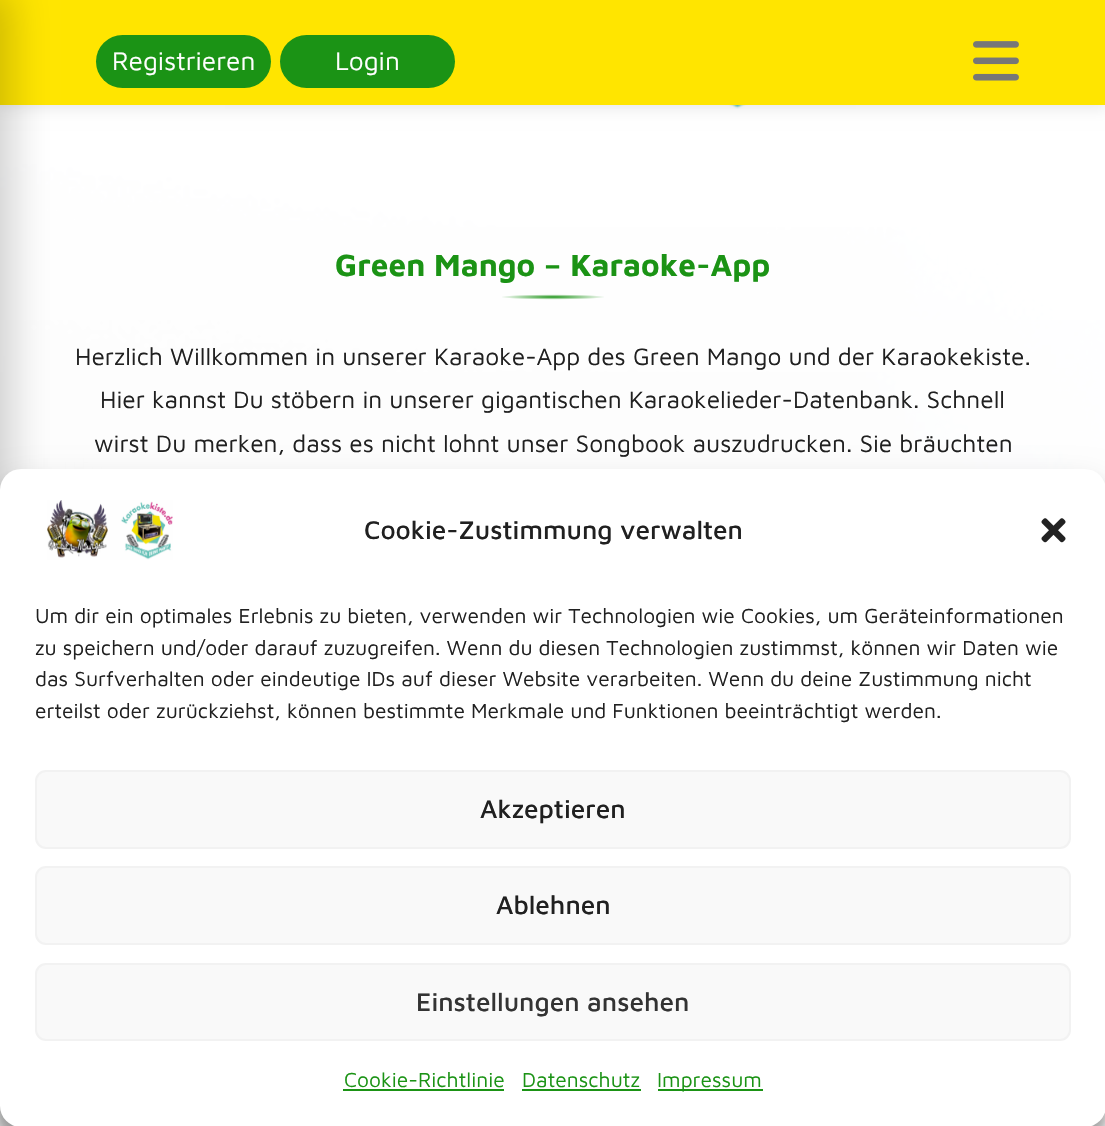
void draw(SkCanvas* canvas) {
	SkPaint paint;
	paint.setAntiAlias(true);
	canvas->clear(0xffffffff);
	canvas->drawImageRect(SkImages::DeferredFromEncodedData(SkData::MakeFromFileName("img2.png")), SkRect::MakeXYWH(0, 105, 1105, 1021), SkSamplingOptions());
	{
		const SkColor colors[] = {0xffffffff, 0x00ffffff};
		const float stops[] = {0, 1};
		const SkPoint ends[] = {{553, -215}, {553, 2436}};
		paint.setShader(SkGradientShader::MakeLinear(ends, colors, stops, 2, SkTileMode::kClamp));
		paint.setAlpha(255);
	}
	canvas->drawRect(SkRect::MakeXYWH(0, 105, 1105, 1021), paint);
	canvas->drawImageRect(SkImages::DeferredFromEncodedData(SkData::MakeFromFileName("img3.png")), SkRect::MakeXYWH(225, 105, 631, 4), SkSamplingOptions());
	paint.setShader(nullptr);
	paint.setColor(0x1a000000);
	paint.setMaskFilter(SkMaskFilter::MakeBlur(kNormal_SkBlurStyle, 8));
	canvas->drawRect(SkRect::MakeXYWH(-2, -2, 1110, 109), paint);
	paint.setMaskFilter(nullptr);
	paint.setColor(0xffffe500);
	canvas->drawRect(SkRect::MakeXYWH(0, 0, 1105, 105), paint);
	paint.setColor(0x33040404);
	paint.setMaskFilter(SkMaskFilter::MakeBlur(kNormal_SkBlurStyle, 21));
	canvas->drawRect(SkRect::MakeXYWH(-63, -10, 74, 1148), paint);
	paint.setMaskFilter(nullptr);
	paint.setColor(0xff1b9315);
	canvas->drawRoundRect(SkRect::MakeXYWH(96, 35, 175, 53), 26.5, 26.5, paint);
	SkFont f1(fontMgr->matchFamilyStyle("Maven Pro", SkFontStyle::Normal()), 26.25);
	f1.setSubpixel(true);
	paint.setColor(0xffffffff);
	canvas->drawString("Registrieren", 112, 70, f1, paint);
	paint.setColor(0xff1b9315);
	canvas->drawRoundRect(SkRect::MakeXYWH(280, 35, 175, 53), 26.5, 26.5, paint);
	paint.setColor(0xffffffff);
	canvas->drawString("Login", 335, 70, f1, paint);
	canvas->drawImageRect(SkImages::DeferredFromEncodedData(SkData::MakeFromFileName("img1.png")), SkRect::MakeXYWH(973, 41, 46, 40), SkSamplingOptions());
	SkFont f2(fontMgr->matchFamilyStyle("Maven Pro", SkFontStyle::Bold()), 31.5);
	f2.setSubpixel(true);
	paint.setColor(0xff1b9315);
	canvas->drawString("Green Mango – Karaoke-App", 335, 276, f2, paint);
	{
		const SkColor colors[] = {0xff1b9315, 0xfffefefe};
		const float stops[] = {0, 0.6};
		SkMatrix m = SkMatrix::Translate(553, 297).preScale(88, 4.4);
		paint.setShader(SkGradientShader::MakeRadial({0, 0}, 1, colors, stops, 2, SkTileMode::kClamp, 0, &m));
		paint.setAlpha(255);
	}
	canvas->drawRect(SkRect::MakeXYWH(502, 294, 102, 6), paint);
	SkFont f3(fontMgr->matchFamilyStyle("Maven Pro", SkFontStyle::Normal()), 24.5);
	f3.setSubpixel(true);
	paint.setShader(nullptr);
	paint.setColor(0xff202020);
	canvas->drawString("Herzlich Willkommen in unserer Karaoke-App des Green Mango und der Karaokekiste.", 75, 365, f3, paint);
	canvas->drawString("Hier kannst Du stöbern in unserer gigantischen Karaokelieder-Datenbank. Schnell", 100, 408, f3, paint);
	canvas->drawString("wirst Du merken, dass es nicht lohnt unser Songbook auszudrucken. Sie bräuchten", 94, 452, f3, paint);
	paint.setColor(0x3b000000);
	paint.setMaskFilter(SkMaskFilter::MakeBlur(kNormal_SkBlurStyle, 5));
	canvas->drawRoundRect(SkRect::MakeXYWH(0, 480, 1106, 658), 21, 21, paint);
	paint.setMaskFilter(nullptr);
	paint.setColor(0x30000000);
	paint.setMaskFilter(SkMaskFilter::MakeBlur(kNormal_SkBlurStyle, 17.5));
	canvas->drawRoundRect(SkRect::MakeXYWH(0, 487, 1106, 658), 21, 21, paint);
	paint.setMaskFilter(nullptr);
	paint.setColor(0xffffffff);
	canvas->drawRoundRect(SkRect::MakeXYWH(0, 469, 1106, 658), 21, 21, paint);
	canvas->drawImageRect(SkImages::DeferredFromEncodedData(SkData::MakeFromFileName("img4.png")), SkRect::MakeXYWH(47, 500, 126, 60), SkSamplingOptions());
	SkFont f4(fontMgr->matchFamilyStyle("Maven Pro", SkFontStyle(500, SkFontStyle::kNormal_Width, SkFontStyle::kUpright_Slant)), 26.25);
	f4.setSubpixel(true);
	paint.setColor(0xff202020);
	canvas->drawString("Cookie-Zustimmung verwalten", 364, 539, f4, paint);
	canvas->drawImageRect(SkImages::DeferredFromEncodedData(SkData::MakeFromFileName("img5.png")), SkRect::MakeXYWH(1041, 518, 25, 25), SkSamplingOptions());
	SkFont f5(fontMgr->matchFamilyStyle("Maven Pro", SkFontStyle::Normal()), 21);
	f5.setSubpixel(true);
	canvas->drawString("Um dir ein optimales Erlebnis zu bieten, verwenden wir Technologien wie Cookies, um Geräteinformationen", 35, 623, f5, paint);
	canvas->drawString("zu speichern und/oder darauf zuzugreifen. Wenn du diesen Technologien zustimmst, können wir Daten wie", 35, 655, f5, paint);
	canvas->drawString("das Surfverhalten oder eindeutige IDs auf dieser Website verarbeiten. Wenn du deine Zustimmung nicht", 35, 686, f5, paint);
	canvas->drawString("erteilst oder zurückziehst, können bestimmte Merkmale und Funktionen beeinträchtigt werden.", 35, 718, f5, paint);
	paint.setColor(0xfff9f9f9);
	canvas->drawRoundRect(SkRect::MakeXYWH(36, 771, 1034, 77), 10, 10, paint);
	paint.setStroke(true);
	paint.setStrokeWidth(2);
	paint.setColor(0xfff2f2f2);
	canvas->drawRoundRect(SkRect::MakeXYWH(36, 771, 1034, 77), 10, 10, paint);
	paint.setStroke(false);
	paint.setColor(0xff202020);
	canvas->drawString("Akzeptieren", 480, 818, f4, paint);
	paint.setColor(0xfff9f9f9);
	canvas->drawRoundRect(SkRect::MakeXYWH(36, 867, 1034, 77), 10, 10, paint);
	paint.setStroke(true);
	paint.setColor(0xfff2f2f2);
	canvas->drawRoundRect(SkRect::MakeXYWH(36, 867, 1034, 77), 10, 10, paint);
	paint.setStroke(false);
	paint.setColor(0xff202020);
	canvas->drawString("Ablehnen", 496, 914, f4, paint);
	paint.setColor(0xfff9f9f9);
	canvas->drawRoundRect(SkRect::MakeXYWH(36, 964, 1034, 76), 10, 10, paint);
	paint.setStroke(true);
	paint.setColor(0xfff2f2f2);
	canvas->drawRoundRect(SkRect::MakeXYWH(36, 964, 1034, 76), 10, 10, paint);
	paint.setStroke(false);
	paint.setColor(0xff333333);
	canvas->drawString("Einstellungen ansehen", 416, 1011, f4, paint);
	paint.setColor(0xff1b9315);
	canvas->drawString("Cookie-Richtlinie", 344, 1087, f5, paint);
	canvas->drawRect(SkRect::MakeXYWH(343, 1089, 161, 2), paint);
	canvas->drawString("Datenschutz", 522, 1087, f5, paint);
	canvas->drawRect(SkRect::MakeXYWH(522, 1089, 119, 2), paint);
	canvas->drawRect(SkRect::MakeXYWH(658, 1089, 105, 2), paint);
	canvas->drawString("Impressum", 657, 1087, f5, paint);
}
